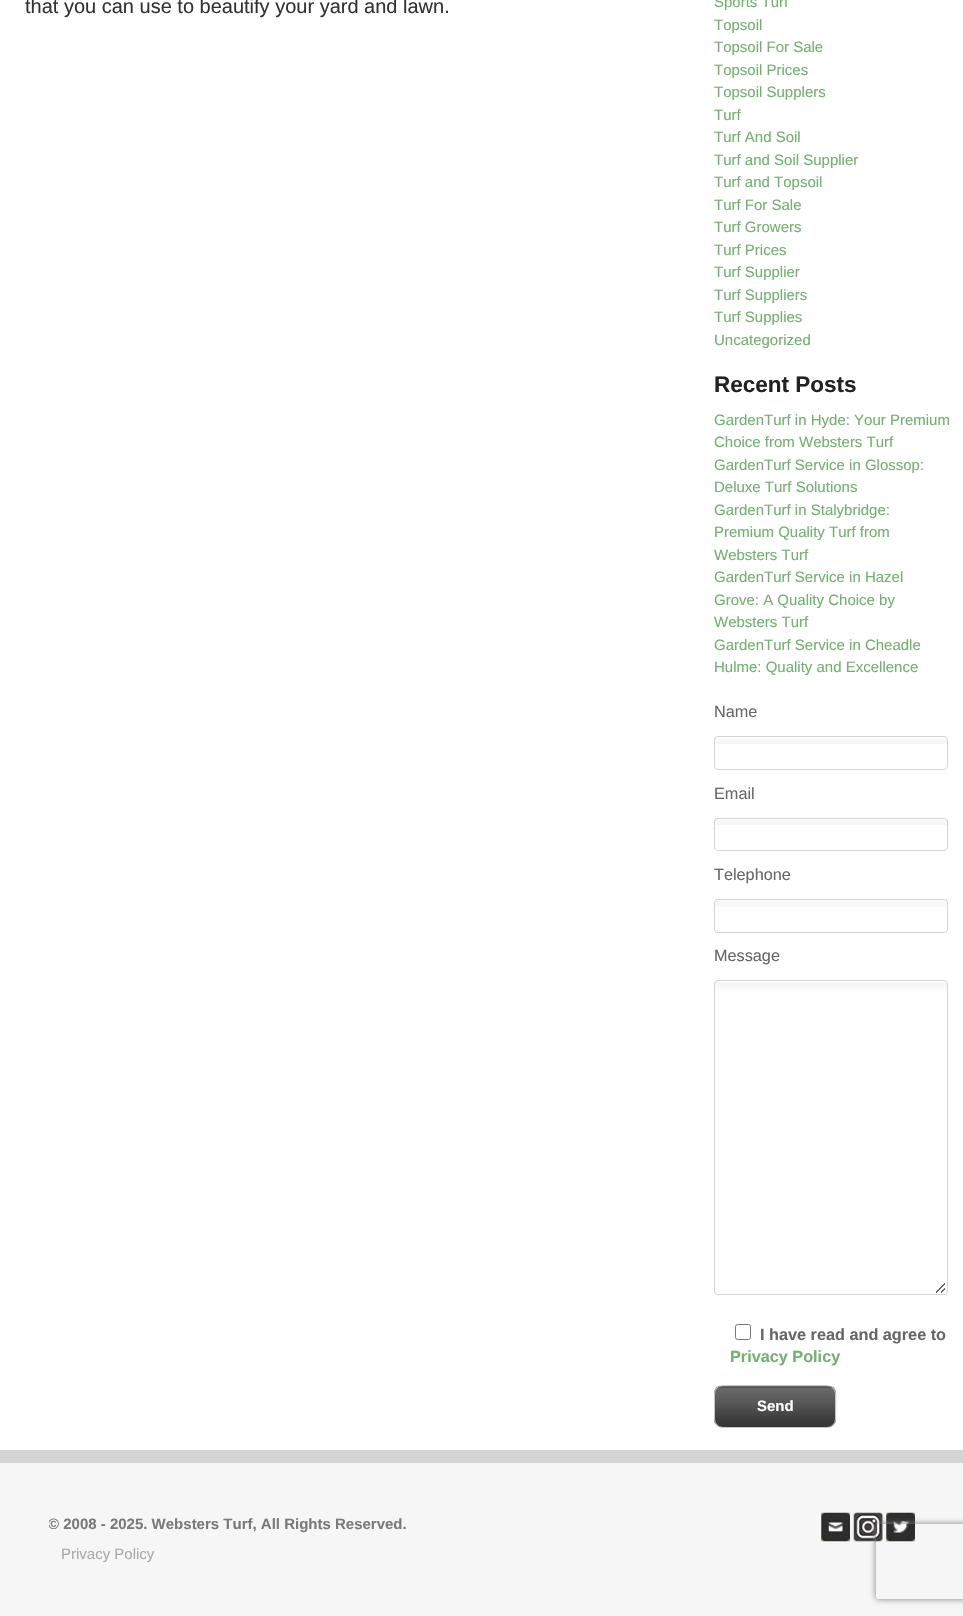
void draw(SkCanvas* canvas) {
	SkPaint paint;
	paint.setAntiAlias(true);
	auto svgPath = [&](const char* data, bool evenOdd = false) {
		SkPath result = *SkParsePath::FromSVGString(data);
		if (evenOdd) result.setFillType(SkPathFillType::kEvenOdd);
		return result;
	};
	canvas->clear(0xfff6f6f6);
	paint.setColor(0xffffffff);
	canvas->drawRect(SkRect::MakeXYWH(0, 0, 963, 1450), paint);
	SkFont f1(fontMgr->matchFamilyStyle("Liberation Sans", SkFontStyle::Normal()), 20);
	f1.setSubpixel(true);
	paint.setColor(0xff333333);
	canvas->drawString("that you can use to beautify your yard and lawn.", 25, 13, f1, paint);
	SkFont f2(fontMgr->matchFamilyStyle("Liberation Sans", SkFontStyle::Normal()), 15);
	f2.setSubpixel(true);
	paint.setColor(0xff72b16e);
	canvas->drawString("Sports Turf", 714, 7, f2, paint);
	canvas->drawString("Topsoil", 714, 30, f2, paint);
	canvas->drawString("Topsoil For Sale", 714, 52, f2, paint);
	canvas->drawString("Topsoil Prices", 714, 75, f2, paint);
	canvas->drawString("Topsoil Supplers", 714, 97, f2, paint);
	canvas->drawString("Turf", 714, 120, f2, paint);
	canvas->drawString("Turf And Soil", 714, 142, f2, paint);
	canvas->drawString("Turf and Soil Supplier", 714, 165, f2, paint);
	canvas->drawString("Turf and Topsoil", 714, 187, f2, paint);
	canvas->drawString("Turf For Sale", 714, 210, f2, paint);
	canvas->drawString("Turf Growers", 714, 232, f2, paint);
	canvas->drawString("Turf Prices", 714, 255, f2, paint);
	canvas->drawString("Turf Supplier", 714, 277, f2, paint);
	canvas->drawString("Turf Suppliers", 714, 300, f2, paint);
	canvas->drawString("Turf Supplies", 714, 322, f2, paint);
	canvas->drawString("Uncategorized", 714, 345, f2, paint);
	SkFont f3(fontMgr->matchFamilyStyle("Liberation Sans", SkFontStyle::Bold()), 22.5);
	f3.setSubpixel(true);
	paint.setColor(0xff222222);
	canvas->drawString("Recent Posts", 714, 392, f3, paint);
	paint.setColor(0xff72b16e);
	canvas->drawString("GardenTurf in Hyde: Your Premium", 714, 425, f2, paint);
	canvas->drawString("Choice from Websters Turf", 714, 447, f2, paint);
	canvas->drawString("GardenTurf Service in Glossop:", 714, 470, f2, paint);
	canvas->drawString("Deluxe Turf Solutions", 714, 492, f2, paint);
	canvas->drawString("GardenTurf in Stalybridge:", 714, 515, f2, paint);
	canvas->drawString("Premium Quality Turf from", 714, 537, f2, paint);
	canvas->drawString("Websters Turf", 714, 560, f2, paint);
	canvas->drawString("GardenTurf Service in Hazel", 714, 582, f2, paint);
	canvas->drawString("Grove: A Quality Choice by", 714, 605, f2, paint);
	canvas->drawString("Websters Turf", 714, 627, f2, paint);
	canvas->drawString("GardenTurf Service in Cheadle", 714, 650, f2, paint);
	canvas->drawString("Hulme: Quality and Excellence", 714, 672, f2, paint);
	SkFont f4(fontMgr->matchFamilyStyle("Liberation Sans", SkFontStyle::Normal()), 16.25);
	f4.setSubpixel(true);
	paint.setColor(0xff666666);
	canvas->drawString("Name", 714, 717, f4, paint);
	paint.setColor(0xfff7f7f7);
	canvas->drawRect(SkRect::MakeXYWH(714, 739, 233, 5), paint);
	paint.setStroke(true);
	paint.setStrokeWidth(1);
	paint.setColor(0xffd4d4d4);
	canvas->drawRoundRect(SkRect::MakeXYWH(714.5, 736.5, 233, 33), 3.5, 3.5, paint);
	paint.setStroke(false);
	paint.setColor(0xff666666);
	canvas->drawString("Email", 714, 799, f4, paint);
	paint.setColor(0xfff7f7f7);
	canvas->drawRect(SkRect::MakeXYWH(714, 820, 233, 5), paint);
	paint.setStroke(true);
	paint.setColor(0xffd4d4d4);
	canvas->drawRoundRect(SkRect::MakeXYWH(714.5, 818.5, 233, 32), 3.5, 3.5, paint);
	paint.setStroke(false);
	paint.setColor(0xff666666);
	canvas->drawString("Telephone", 714, 880, f4, paint);
	paint.setColor(0xfff8f8f8);
	canvas->drawRect(SkRect::MakeXYWH(714, 901, 233, 6), paint);
	paint.setStroke(true);
	paint.setColor(0xffd4d4d4);
	canvas->drawRoundRect(SkRect::MakeXYWH(714.5, 899.5, 233, 33), 3.5, 3.5, paint);
	paint.setStroke(false);
	paint.setColor(0xff666666);
	canvas->drawString("Message", 714, 961, f4, paint);
	canvas->drawImageRect(SkImages::DeferredFromEncodedData(SkData::MakeFromFileName("img1.png")), SkRect::MakeXYWH(714, 982, 233, 311), SkSamplingOptions());
	paint.setStroke(true);
	paint.setColor(0xffd4d4d4);
	canvas->drawRoundRect(SkRect::MakeXYWH(714.5, 980.5, 233, 314), 3.5, 3.5, paint);
	paint.setColor(0xff767676);
	canvas->drawRoundRect(SkRect::MakeXYWH(735.5, 1324.5, 15, 15), 2, 2, paint);
	SkFont f5(fontMgr->matchFamilyStyle("Liberation Sans", SkFontStyle::Bold()), 16.25);
	f5.setSubpixel(true);
	paint.setStroke(false);
	paint.setColor(0xff666666);
	canvas->drawString("I have read and agree to", 760, 1340, f5, paint);
	paint.setColor(0xff72b16e);
	canvas->drawString("Privacy Policy", 730, 1362, f5, paint);
	canvas->drawImageRect(SkImages::DeferredFromEncodedData(SkData::MakeFromFileName("img2.png")), SkRect::MakeXYWH(714, 1386, 123, 42), SkSamplingOptions());
	paint.setStroke(true);
	paint.setColor(0xffc6c6c6);
	canvas->drawRoundRect(SkRect::MakeXYWH(714.5, 1385.5, 121, 42), 8.5, 8.5, paint);
	SkFont f6(fontMgr->matchFamilyStyle("Liberation Sans", SkFontStyle::Bold()), 15);
	f6.setSubpixel(true);
	paint.setStroke(false);
	paint.setColor(0xffffffff);
	canvas->drawString("Send", 757, 1411, f6, paint);
	paint.setColor(0xffd4d4d4);
	canvas->drawRect(SkRect::MakeXYWH(0, 1450, 963, 13), paint);
	canvas->save();
	canvas->clipRect(SkRect::MakeXYWH(49, 1513, 866, 53));
	paint.setColor(0xff7a7a7a);
	canvas->drawString("© 2008 - 2025. Websters Turf, All Rights Reserved.", 48, 1529, f6, paint);
	canvas->restore();
	canvas->drawImageRect(SkImages::DeferredFromEncodedData(SkData::MakeFromFileName("img3.png")), SkRect::MakeXYWH(821, 1512, 29, 30), SkSamplingOptions());
	canvas->drawImageRect(SkImages::DeferredFromEncodedData(SkData::MakeFromFileName("img4.png")), SkRect::MakeXYWH(853, 1512, 30, 30), SkSamplingOptions());
	canvas->drawImageRect(SkImages::DeferredFromEncodedData(SkData::MakeFromFileName("img5.png")), SkRect::MakeXYWH(886, 1512, 29, 30), SkSamplingOptions());
	paint.setColor(0xffaaaaaa);
	canvas->drawString("Privacy Policy", 61, 1559, f2, paint);
	canvas->save();
	canvas->clipPath(svgPath("M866 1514H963V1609H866ZM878.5 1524H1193.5C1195 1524 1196 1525 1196 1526.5V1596.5C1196 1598 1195 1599 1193.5 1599H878.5C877 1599 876 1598 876 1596.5V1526.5C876 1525 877 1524 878.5 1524Z", true), true);
	paint.setColor(0xff808080);
	paint.setMaskFilter(SkMaskFilter::MakeBlur(kNormal_SkBlurStyle, 3));
	canvas->drawRoundRect(SkRect::MakeXYWH(876, 1524, 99, 75), 2.5, 2.5, paint);
	paint.setMaskFilter(nullptr);
	canvas->restore();
}
